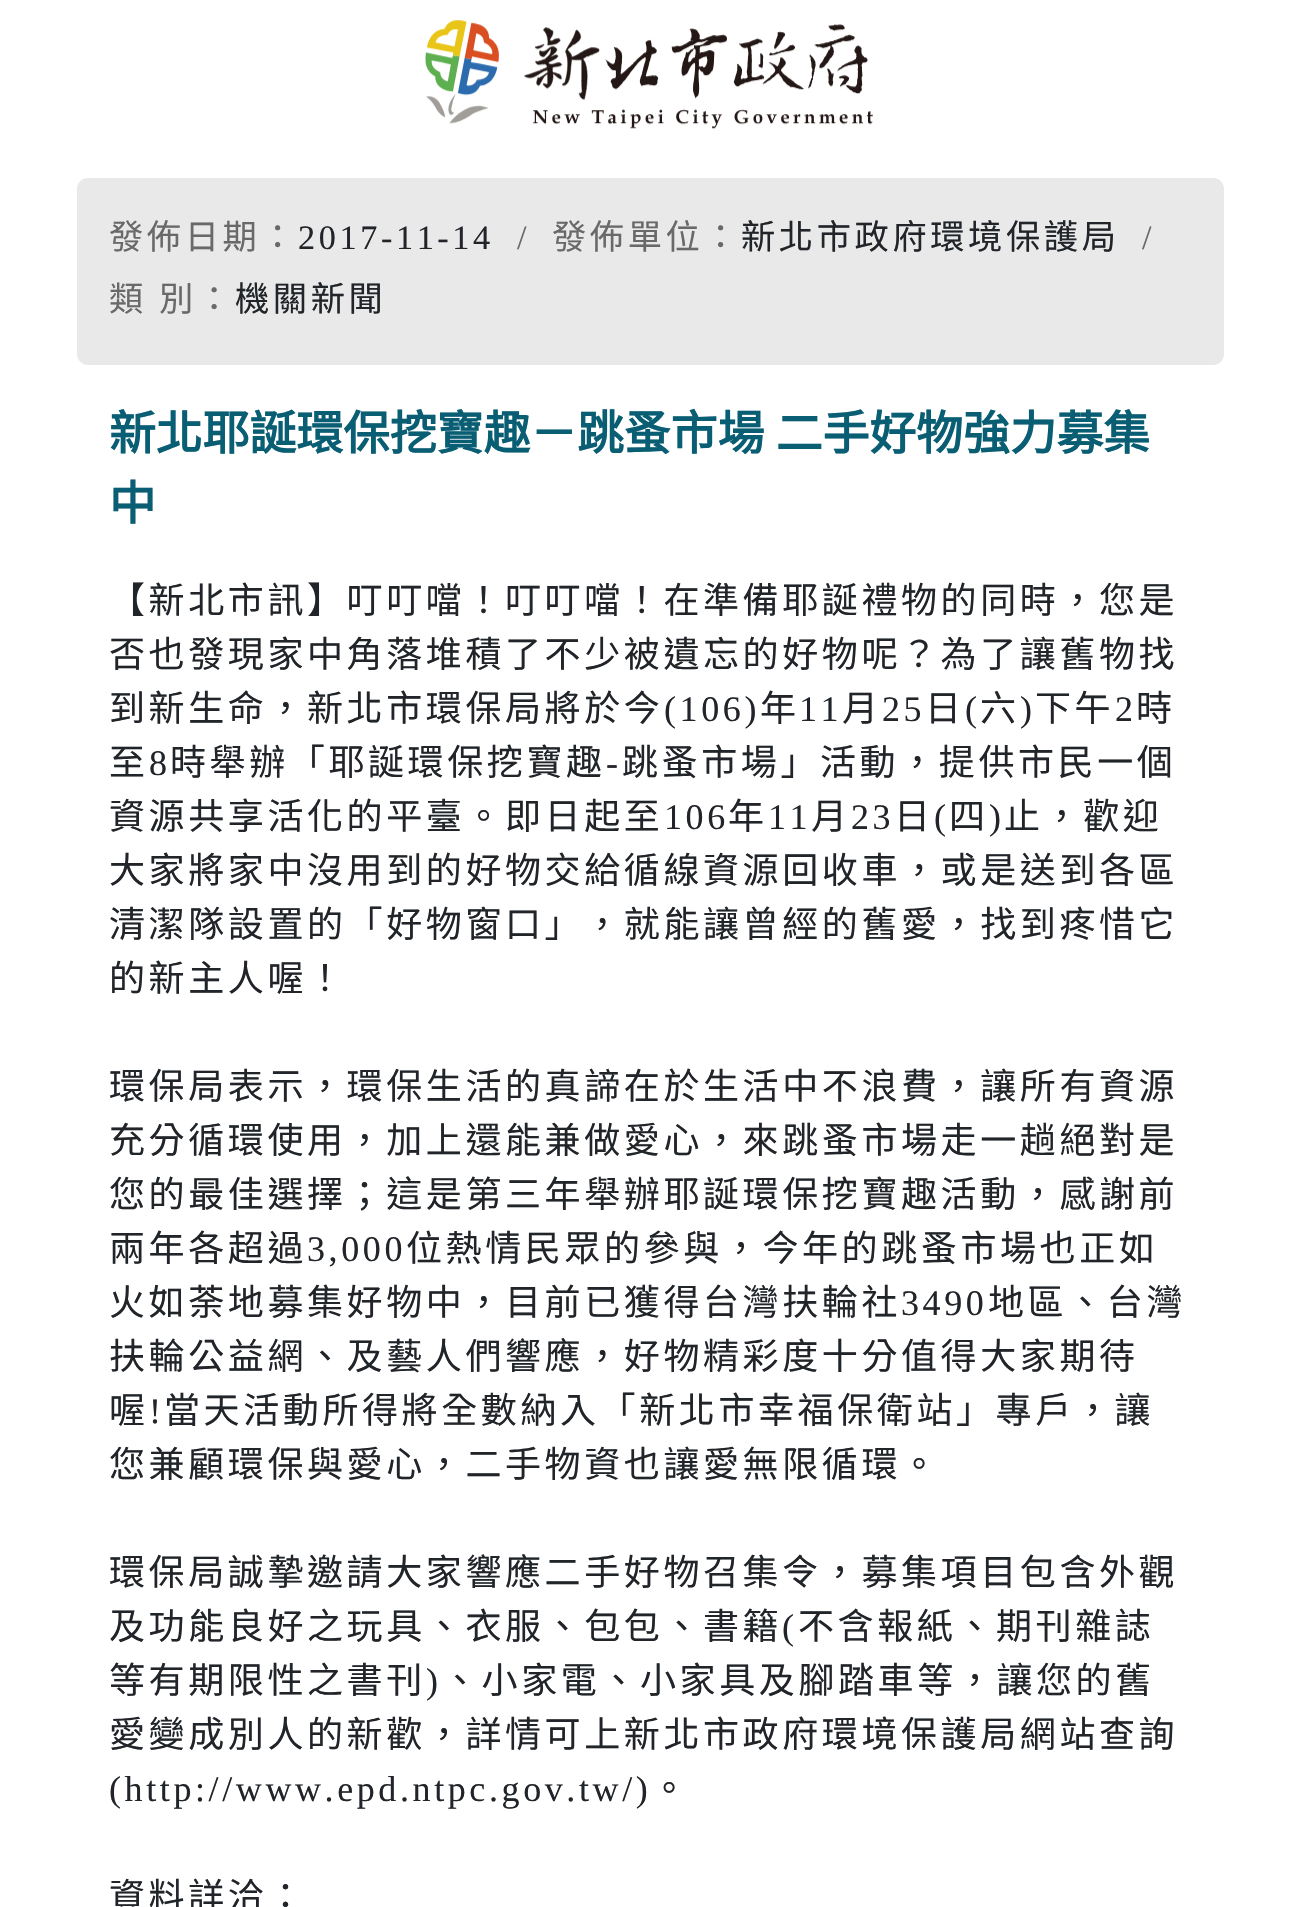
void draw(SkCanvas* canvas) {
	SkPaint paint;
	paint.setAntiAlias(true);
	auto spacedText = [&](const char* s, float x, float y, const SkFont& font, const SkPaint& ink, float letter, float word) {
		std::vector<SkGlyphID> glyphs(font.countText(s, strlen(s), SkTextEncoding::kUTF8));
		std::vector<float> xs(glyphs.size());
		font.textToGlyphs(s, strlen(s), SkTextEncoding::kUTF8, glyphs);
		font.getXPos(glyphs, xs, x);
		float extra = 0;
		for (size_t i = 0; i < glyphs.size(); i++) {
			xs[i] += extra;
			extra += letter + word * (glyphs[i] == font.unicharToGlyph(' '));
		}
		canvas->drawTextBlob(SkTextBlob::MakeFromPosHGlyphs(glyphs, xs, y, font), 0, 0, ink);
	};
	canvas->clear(0xffffffff);
	canvas->drawImageRect(SkImages::DeferredFromEncodedData(SkData::MakeFromFileName("img1.png")), SkRect::MakeXYWH(425, 20, 448, 109), SkSamplingOptions());
	paint.setColor(0xffe9e9e9);
	canvas->drawRoundRect(SkRect::MakeXYWH(77, 178, 1147, 187), 11, 11, paint);
	SkFont f1(fontMgr->matchFamilyStyle("Noto Sans CJK TC", SkFontStyle::Normal()), 34.25);
	f1.setSubpixel(true);
	paint.setColor(0xff696969);
	spacedText("發佈日期：", 109, 249, f1, paint, 3.6, 0);
	SkFont f2(fontMgr->matchFamilyStyle("Liberation Serif", SkFontStyle::Normal()), 34.25);
	f2.setSubpixel(true);
	paint.setColor(0xff212529);
	spacedText("2017-11-14", 298, 249, f2, paint, 3.6, 0);
	paint.setColor(0xff696969);
	spacedText("/", 517, 249, f2, paint, 3.6, 0);
	spacedText("發佈單位：", 552, 249, f1, paint, 3.6, 0);
	paint.setColor(0xff212529);
	spacedText("新北市政府環境保護局", 741, 249, f1, paint, 3.6, 0);
	paint.setColor(0xff696969);
	spacedText("/", 1142, 249, f2, paint, 3.6, 0);
	spacedText("類 別：", 109, 311, f1, paint, 3.6, 1);
	paint.setColor(0xff212529);
	spacedText("機關新聞", 235, 311, f1, paint, 3.6, 0);
	SkFont f3(fontMgr->matchFamilyStyle("Noto Sans CJK TC", SkFontStyle::Bold()), 46.8);
	f3.setSubpixel(true);
	paint.setColor(0xff095e73);
	spacedText("新北耶誕環保挖寶趣－跳蚤市場 二手好物強力募集", 109, 450, f3, paint, 0, 1);
	canvas->drawString("中", 109, 520, f3, paint);
	SkFont f4(fontMgr->matchFamilyStyle("Noto Sans CJK TC", SkFontStyle::Normal()), 36);
	f4.setSubpixel(true);
	paint.setColor(0xff212529);
	spacedText("【新北市訊】叮叮噹！叮叮噹！在準備耶誕禮物的同時，您是", 109, 613, f4, paint, 3.6, 0);
	spacedText("否也發現家中角落堆積了不少被遺忘的好物呢？為了讓舊物找", 109, 667, f4, paint, 3.6, 0);
	spacedText("到新生命，新北市環保局將於今", 109, 721, f4, paint, 3.6, 0);
	SkFont f5(fontMgr->matchFamilyStyle("Liberation Serif", SkFontStyle::Normal()), 36);
	f5.setSubpixel(true);
	spacedText("(106)", 664, 721, f5, paint, 3.6, 0);
	spacedText("年", 760, 721, f4, paint, 3.6, 0);
	spacedText("11", 799, 721, f5, paint, 3.6, 0);
	spacedText("月", 842, 721, f4, paint, 3.6, 0);
	spacedText("25", 882, 721, f5, paint, 3.6, 0);
	spacedText("日", 925, 721, f4, paint, 3.6, 0);
	spacedText("(", 965, 721, f5, paint, 3.6, 0);
	spacedText("六", 980, 721, f4, paint, 3.6, 0);
	spacedText(")", 1020, 721, f5, paint, 3.6, 0);
	spacedText("下午", 1035, 721, f4, paint, 3.6, 0);
	spacedText("2", 1115, 721, f5, paint, 3.6, 0);
	spacedText("時", 1136, 721, f4, paint, 3.6, 0);
	spacedText("至", 109, 775, f4, paint, 3.6, 0);
	spacedText("8", 149, 775, f5, paint, 3.6, 0);
	spacedText("時舉辦「耶誕環保挖寶趣", 170, 775, f4, paint, 3.6, 0);
	spacedText("-", 606, 775, f5, paint, 3.6, 0);
	spacedText("跳蚤市場」活動，提供市民一個", 622, 775, f4, paint, 3.6, 0);
	spacedText("資源共享活化的平臺。即日起至", 109, 829, f4, paint, 3.6, 0);
	spacedText("106", 664, 829, f5, paint, 3.6, 0);
	spacedText("年", 728, 829, f4, paint, 3.6, 0);
	spacedText("11", 768, 829, f5, paint, 3.6, 0);
	spacedText("月", 811, 829, f4, paint, 3.6, 0);
	spacedText("23", 851, 829, f5, paint, 3.6, 0);
	spacedText("日", 894, 829, f4, paint, 3.6, 0);
	spacedText("(", 934, 829, f5, paint, 3.6, 0);
	spacedText("四", 949, 829, f4, paint, 3.6, 0);
	spacedText(")", 989, 829, f5, paint, 3.6, 0);
	spacedText("止，歡迎", 1004, 829, f4, paint, 3.6, 0);
	spacedText("大家將家中沒用到的好物交給循線資源回收車，或是送到各區", 109, 883, f4, paint, 3.6, 0);
	spacedText("清潔隊設置的「好物窗口」，就能讓曾經的舊愛，找到疼惜它", 109, 937, f4, paint, 3.6, 0);
	spacedText("的新主人喔！", 109, 991, f4, paint, 3.6, 0);
	spacedText("環保局表示，環保生活的真諦在於生活中不浪費，讓所有資源", 109, 1099, f4, paint, 3.6, 0);
	spacedText("充分循環使用，加上還能兼做愛心，來跳蚤市場走一趟絕對是", 109, 1153, f4, paint, 3.6, 0);
	spacedText("您的最佳選擇；這是第三年舉辦耶誕環保挖寶趣活動，感謝前", 109, 1207, f4, paint, 3.6, 0);
	spacedText("兩年各超過", 109, 1261, f4, paint, 3.6, 0);
	spacedText("3,000", 307, 1261, f5, paint, 3.6, 0);
	spacedText("位熱情民眾的參與，今年的跳蚤市場也正如", 406, 1261, f4, paint, 3.6, 0);
	spacedText("火如荼地募集好物中，目前已獲得台灣扶輪社", 109, 1315, f4, paint, 3.6, 0);
	spacedText("3490", 901, 1315, f5, paint, 3.6, 0);
	spacedText("地區、台灣", 988, 1315, f4, paint, 3.6, 0);
	spacedText("扶輪公益網、及藝人們響應，好物精彩度十分值得大家期待", 109, 1369, f4, paint, 3.6, 0);
	spacedText("喔", 109, 1423, f4, paint, 3.6, 0);
	spacedText("!", 149, 1423, f5, paint, 3.6, 0);
	spacedText("當天活動所得將全數納入「新北市幸福保衛站」專戶，讓", 164, 1423, f4, paint, 3.6, 0);
	spacedText("您兼顧環保與愛心，二手物資也讓愛無限循環。", 109, 1477, f4, paint, 3.6, 0);
	spacedText("環保局誠摯邀請大家響應二手好物召集令，募集項目包含外觀", 109, 1585, f4, paint, 3.6, 0);
	spacedText("及功能良好之玩具、衣服、包包、書籍", 109, 1639, f4, paint, 3.6, 0);
	spacedText("(", 782, 1639, f5, paint, 3.6, 0);
	spacedText("不含報紙、期刊雜誌", 798, 1639, f4, paint, 3.6, 0);
	spacedText("等有期限性之書刊", 109, 1693, f4, paint, 3.6, 0);
	spacedText(")", 426, 1693, f5, paint, 3.6, 0);
	spacedText("、小家電、小家具及腳踏車等，讓您的舊", 442, 1693, f4, paint, 3.6, 0);
	spacedText("愛變成別人的新歡，詳情可上新北市政府環境保護局網站查詢", 109, 1747, f4, paint, 3.6, 0);
	spacedText("(http://www.epd.ntpc.gov.tw/)", 109, 1801, f5, paint, 3.6, 0);
	spacedText("。", 651, 1801, f4, paint, 3.6, 0);
	spacedText("資料詳洽：", 109, 1909, f4, paint, 3.6, 0);
}
